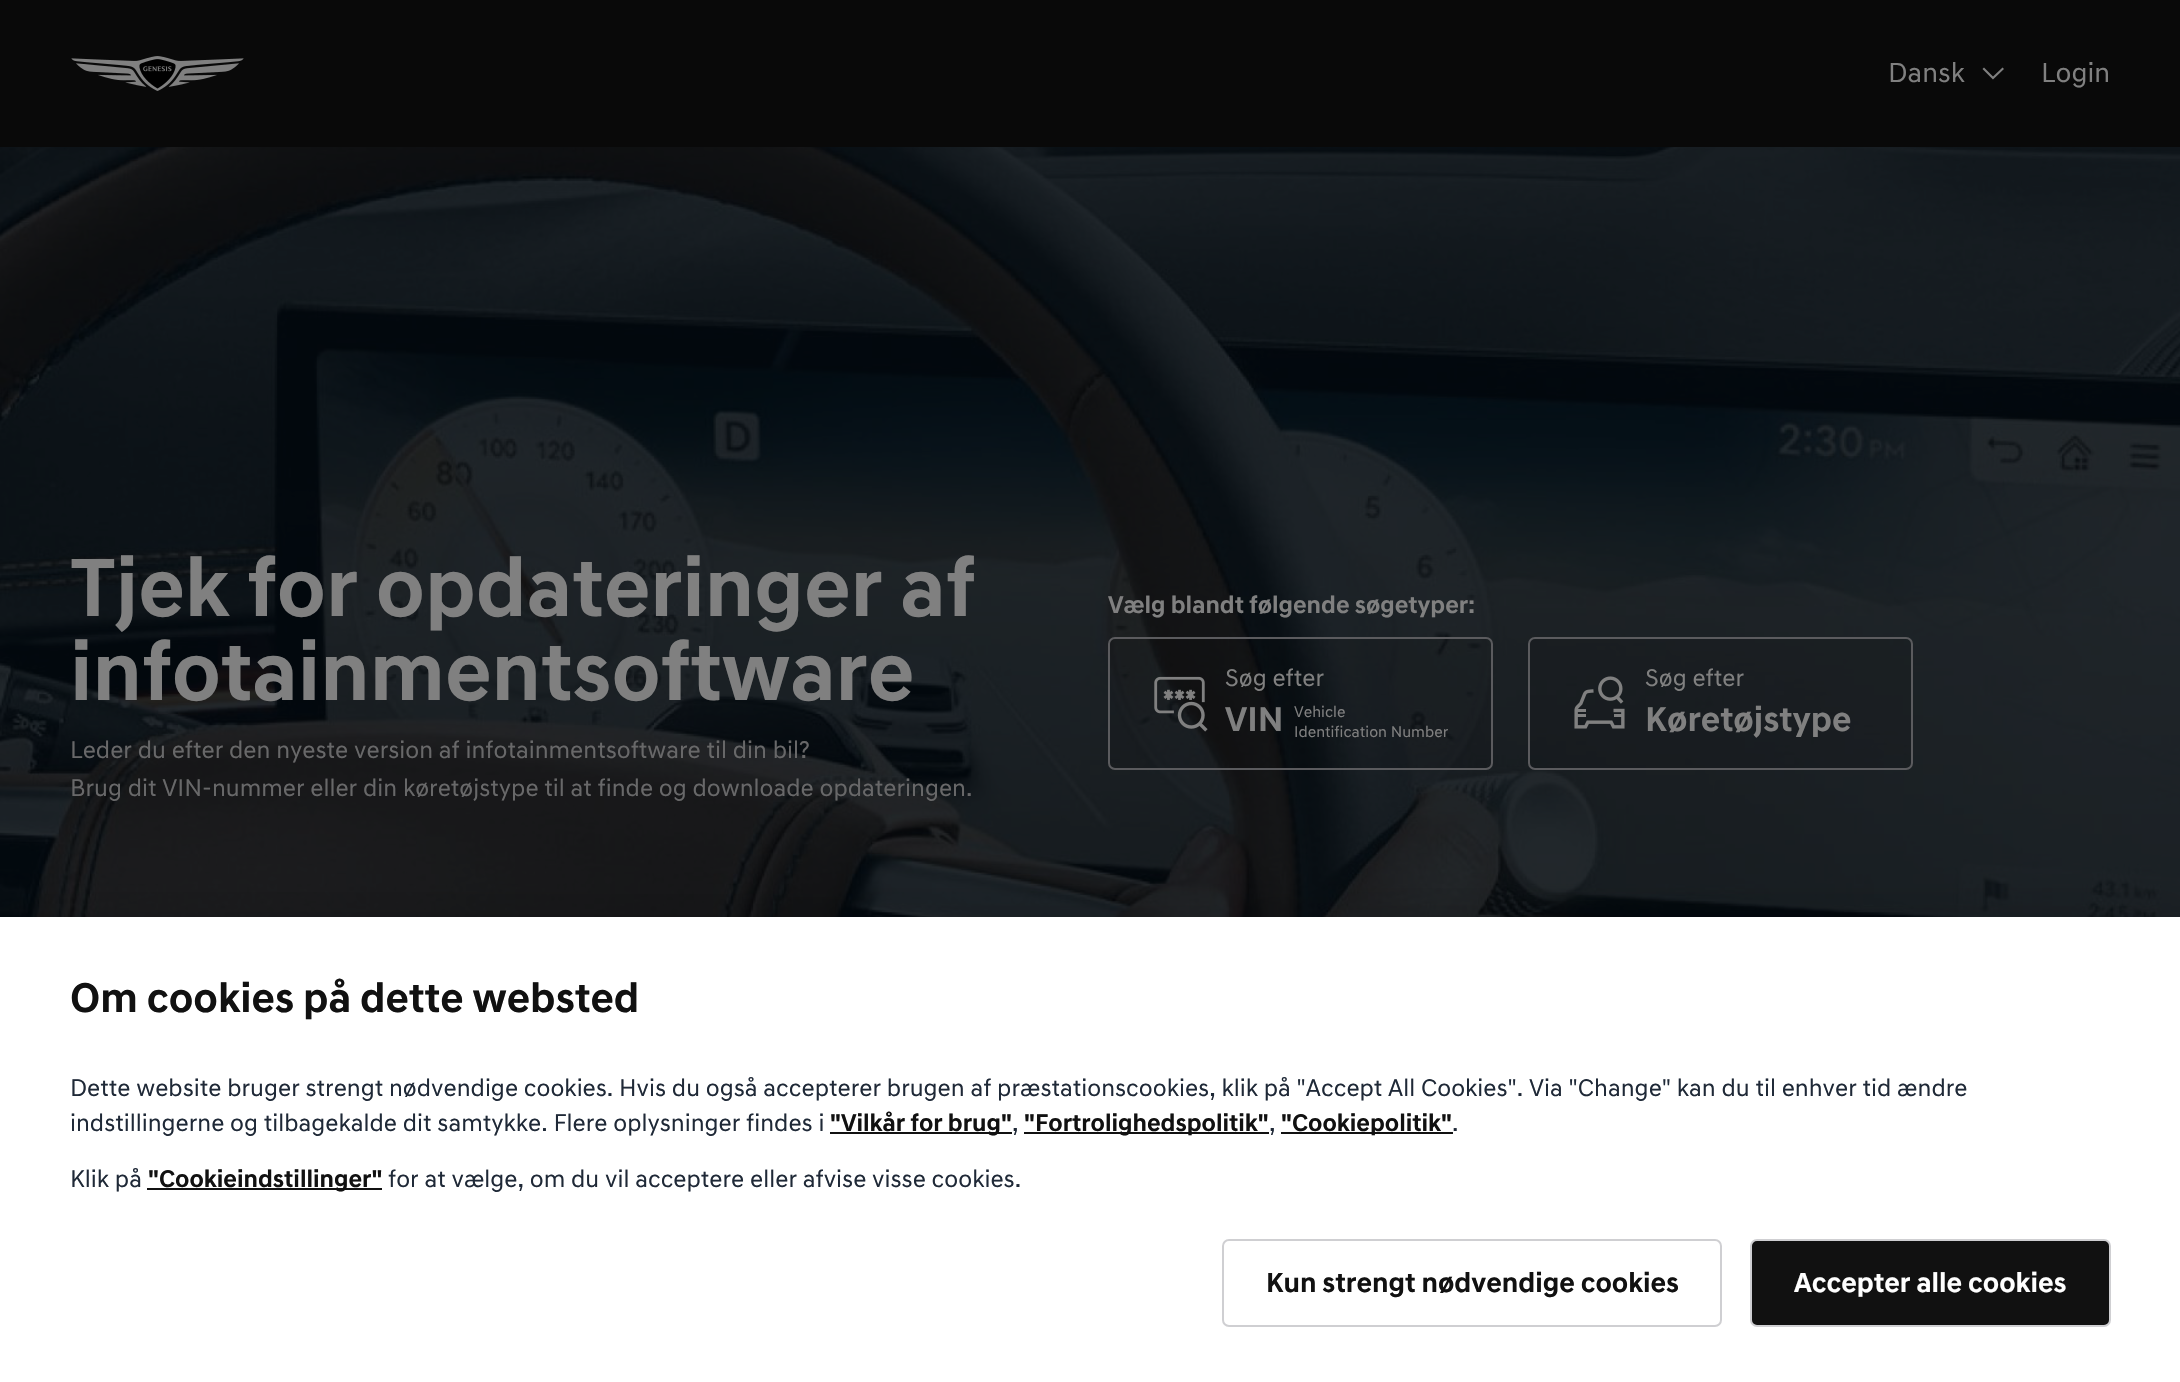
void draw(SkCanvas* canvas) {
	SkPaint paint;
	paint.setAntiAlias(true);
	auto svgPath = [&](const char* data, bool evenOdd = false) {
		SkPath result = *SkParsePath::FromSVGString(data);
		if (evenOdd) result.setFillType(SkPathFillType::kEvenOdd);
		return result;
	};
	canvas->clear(0xffffffff);
	paint.setColor(0xff090909);
	canvas->drawRect(SkRect::MakeXYWH(0, 0, 2180, 147), paint);
	canvas->drawImageRect(SkImages::DeferredFromEncodedData(SkData::MakeFromFileName("img1.png")), SkRect::MakeXYWH(71, 56, 173, 35), SkSamplingOptions());
	SkFont f1(fontMgr->matchFamilyStyle("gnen", SkFontStyle::Normal()), 28);
	f1.setSubpixel(true);
	paint.setColor(0xff808080);
	canvas->drawString("Dansk", 1888, 82, f1, paint);
	paint.setStroke(true);
	paint.setStrokeWidth(2.1);
	paint.setStrokeCap(SkPaint::kSquare_Cap);
	canvas->drawPath(svgPath("M1984 69L1993 78L2002.5 69"), paint);
	paint.setStroke(false);
	canvas->drawString("Login", 2041, 82, f1, paint);
	canvas->drawImageRect(SkImages::DeferredFromEncodedData(SkData::MakeFromFileName("img2.png")), SkRect::MakeXYWH(0, 147, 2180, 770), SkSamplingOptions());
	SkFont f2(fontMgr->matchFamilyStyle("gnen", SkFontStyle::Bold()), 84);
	f2.setSubpixel(true);
	canvas->drawString("Tjek for opdateringer af", 70, 616, f2, paint);
	canvas->drawString("infotainmentsoftware", 70, 700, f2, paint);
	SkFont f3(fontMgr->matchFamilyStyle("gnen", SkFontStyle::Normal()), 24.5);
	f3.setSubpixel(true);
	paint.setColor(0xff686869);
	canvas->drawString("Leder du efter den nyeste version af infotainmentsoftware til din bil?", 70, 758, f3, paint);
	canvas->drawString("Brug dit VIN-nummer eller din køretøjstype til at finde og downloade opdateringen.", 70, 796, f3, paint);
	SkFont f4(fontMgr->matchFamilyStyle("gnen", SkFontStyle::Bold()), 24.5);
	f4.setSubpixel(true);
	paint.setColor(0xff808080);
	canvas->drawString("Vælg blandt følgende søgetyper:", 1108, 613, f4, paint);
	paint.setColor(0x1a000000);
	canvas->drawRoundRect(SkRect::MakeXYWH(1109, 638, 383, 131), 6, 6, paint);
	paint.setStroke(true);
	paint.setStrokeWidth(2);
	paint.setStrokeCap(SkPaint::kButt_Cap);
	paint.setColor(0xff5b5b5e);
	canvas->drawRoundRect(SkRect::MakeXYWH(1109, 638, 383, 131), 6, 6, paint);
	canvas->drawImageRect(SkImages::DeferredFromEncodedData(SkData::MakeFromFileName("img3.png")), SkRect::MakeXYWH(1154, 676, 54, 56), SkSamplingOptions());
	paint.setStroke(false);
	paint.setColor(0xff808080);
	canvas->drawString("Søg efter", 1225, 686, f3, paint);
	SkFont f5(fontMgr->matchFamilyStyle("gnen", SkFontStyle::Bold()), 35);
	f5.setSubpixel(true);
	canvas->drawString("VIN", 1225, 731, f5, paint);
	SkFont f6(fontMgr->matchFamilyStyle("gnen", SkFontStyle::Normal()), 15.75);
	f6.setSubpixel(true);
	canvas->drawString("Vehicle", 1294, 717, f6, paint);
	canvas->drawString("Identification Number", 1294, 737, f6, paint);
	paint.setColor(0x1a000000);
	canvas->drawRoundRect(SkRect::MakeXYWH(1529, 638, 383, 131), 6, 6, paint);
	paint.setStroke(true);
	paint.setColor(0xff5b5b5e);
	canvas->drawRoundRect(SkRect::MakeXYWH(1529, 638, 383, 131), 6, 6, paint);
	canvas->drawImageRect(SkImages::DeferredFromEncodedData(SkData::MakeFromFileName("img4.png")), SkRect::MakeXYWH(1574, 676, 51, 53), SkSamplingOptions());
	paint.setStroke(false);
	paint.setColor(0xff808080);
	canvas->drawString("Søg efter", 1645, 686, f3, paint);
	canvas->drawString("Køretøjstype", 1645, 731, f5, paint);
	paint.setColor(0x1a000000);
	paint.setMaskFilter(SkMaskFilter::MakeBlur(kNormal_SkBlurStyle, 17.5));
	canvas->drawRect(SkRect::MakeXYWH(0, 910, 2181, 466), paint);
	paint.setMaskFilter(nullptr);
	paint.setColor(0xffffffff);
	canvas->drawRect(SkRect::MakeXYWH(0, 917, 2180, 465), paint);
	SkFont f7(fontMgr->matchFamilyStyle("gnen", SkFontStyle::Bold()), 42);
	f7.setSubpixel(true);
	paint.setColor(0xff111111);
	canvas->drawString("Om cookies på dette websted", 70, 1012, f7, paint);
	paint.setColor(0xff1f2937);
	canvas->drawString("Dette website bruger strengt nødvendige cookies. Hvis du også accepterer brugen af præstationscookies, klik på \"Accept All Cookies\". Via \"Change\" kan du til enhver tid ændre", 70, 1096, f3, paint);
	canvas->drawString("indstillingerne og tilbagekalde dit samtykke. Flere oplysninger findes i", 70, 1131, f3, paint);
	paint.setColor(0xff111111);
	canvas->drawRect(SkRect::MakeXYWH(830, 1132, 182, 2), paint);
	canvas->drawString("\"Vilkår for brug\"", 830, 1131, f4, paint);
	paint.setColor(0xff1f2937);
	canvas->drawString(",", 1012, 1131, f3, paint);
	paint.setColor(0xff111111);
	canvas->drawRect(SkRect::MakeXYWH(1024, 1132, 234, 2), paint);
	canvas->drawString("\"Fortrolighedspolitik\"", 1024, 1131, f4, paint);
	canvas->drawRect(SkRect::MakeXYWH(1258, 1132, 11, 2), paint);
	paint.setColor(0xff1f2937);
	canvas->drawString(",", 1269, 1131, f3, paint);
	paint.setColor(0xff111111);
	canvas->drawRect(SkRect::MakeXYWH(1281, 1132, 172, 2), paint);
	canvas->drawString("\"Cookiepolitik\"", 1281, 1131, f4, paint);
	paint.setColor(0xff1f2937);
	canvas->drawString(".", 1452, 1131, f3, paint);
	canvas->drawString("Klik på", 70, 1187, f3, paint);
	paint.setColor(0xff111111);
	canvas->drawRect(SkRect::MakeXYWH(147, 1188, 235, 2), paint);
	canvas->drawString("\"Cookieindstillinger\"", 148, 1187, f4, paint);
	paint.setColor(0xff1f2937);
	canvas->drawString("for at vælge, om du vil acceptere eller afvise visse cookies.", 388, 1187, f3, paint);
	paint.setStroke(true);
	paint.setColor(0xffcfcfd2);
	canvas->drawRoundRect(SkRect::MakeXYWH(1223, 1240, 498, 86), 6, 6, paint);
	SkFont f8(fontMgr->matchFamilyStyle("gnen", SkFontStyle::Bold()), 28);
	f8.setSubpixel(true);
	paint.setStroke(false);
	paint.setColor(0xff111111);
	canvas->drawString("Kun strengt nødvendige cookies", 1266, 1292, f8, paint);
	canvas->drawRoundRect(SkRect::MakeXYWH(1751, 1240, 359, 86), 6, 6, paint);
	paint.setStroke(true);
	paint.setColor(0xffcfcfd2);
	canvas->drawRoundRect(SkRect::MakeXYWH(1751, 1240, 359, 86), 6, 6, paint);
	paint.setStroke(false);
	paint.setColor(0xffffffff);
	canvas->drawString("Accepter alle cookies", 1794, 1292, f8, paint);
}
